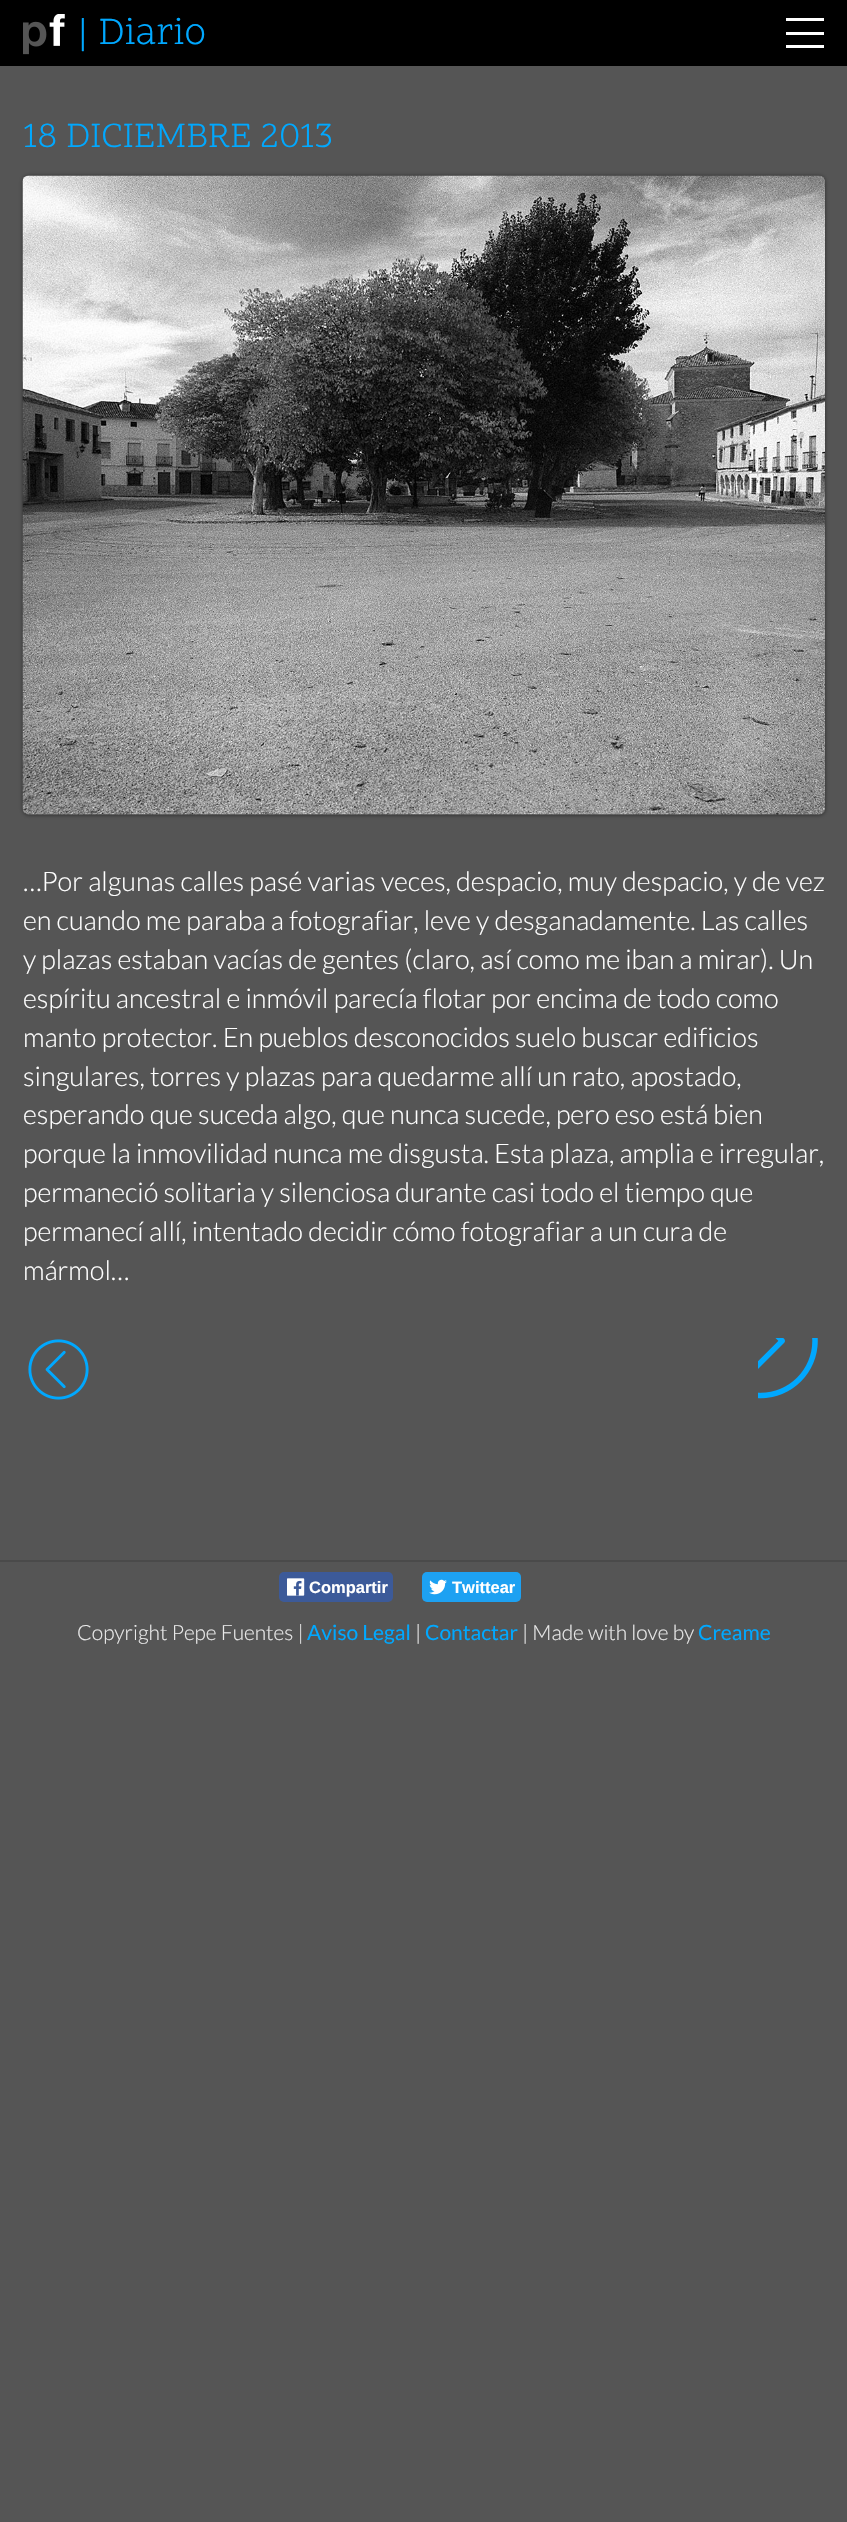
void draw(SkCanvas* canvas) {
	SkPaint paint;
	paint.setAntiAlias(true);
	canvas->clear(0xff555555);
	paint.setColor(0xff000000);
	canvas->drawRect(SkRect::MakeXYWH(0, 0, 847, 66), paint);
	canvas->drawImageRect(SkImages::DeferredFromEncodedData(SkData::MakeFromFileName("img1.png")), SkRect::MakeXYWH(23, 14, 42, 41), SkSamplingOptions());
	SkFont f1(fontMgr->matchFamilyStyle("Scope One", SkFontStyle::Normal()), 39);
	f1.setSubpixel(true);
	paint.setColor(0xff00a8ff);
	canvas->drawString("| Diario", 77, 44, f1, paint);
	paint.setColor(0xffffffff);
	canvas->drawRect(SkRect::MakeXYWH(786, 18, 38, 3), paint);
	canvas->drawRect(SkRect::MakeXYWH(786, 32, 38, 3), paint);
	canvas->drawRect(SkRect::MakeXYWH(786, 45, 38, 3), paint);
	SkFont f2(fontMgr->matchFamilyStyle("Scope One", SkFontStyle::Normal()), 36);
	f2.setSubpixel(true);
	paint.setColor(0xff00a8ff);
	canvas->drawString("18 DICIEMBRE 2013", 23, 147, f2, paint);
	paint.setColor(0x80000000);
	paint.setMaskFilter(SkMaskFilter::MakeBlur(kNormal_SkBlurStyle, 2));
	canvas->drawRoundRect(SkRect::MakeXYWH(23, 176, 802, 639), 6, 6, paint);
	paint.setMaskFilter(nullptr);
	paint.setColor(0xff4a4a4a);
	canvas->drawRoundRect(SkRect::MakeXYWH(23, 176, 802, 639), 6, 6, paint);
	canvas->drawImageRect(SkImages::DeferredFromEncodedData(SkData::MakeFromFileName("img2.png")), SkRect::MakeXYWH(22, 175, 803, 640), SkSamplingOptions());
	SkFont f3(fontMgr->matchFamilyStyle("Lato", SkFontStyle(300, SkFontStyle::kNormal_Width, SkFontStyle::kUpright_Slant)), 27);
	f3.setSubpixel(true);
	paint.setColor(0xffffffff);
	canvas->drawString("…Por algunas calles pasé varias veces, despacio, muy despacio, y de vez", 23, 891, f3, paint);
	canvas->drawString("en cuando me paraba a fotografiar, leve y desganadamente. Las calles", 23, 930, f3, paint);
	canvas->drawString("y plazas estaban vacías de gentes (claro, así como me iban a mirar). Un", 23, 969, f3, paint);
	canvas->drawString("espíritu ancestral e inmóvil parecía flotar por encima de todo como", 23, 1008, f3, paint);
	canvas->drawString("manto protector. En pueblos desconocidos suelo buscar edificios", 23, 1047, f3, paint);
	canvas->drawString("singulares, torres y plazas para quedarme allí un rato, apostado,", 23, 1086, f3, paint);
	canvas->drawString("esperando que suceda algo, que nunca sucede, pero eso está bien", 23, 1124, f3, paint);
	canvas->drawString("porque la inmovilidad nunca me disgusta. Esta plaza, amplia e irregular,", 23, 1163, f3, paint);
	canvas->drawString("permaneció solitaria y silenciosa durante casi todo el tiempo que", 23, 1202, f3, paint);
	canvas->drawString("permanecí allí, intentado decidir cómo fotografiar a un cura de", 23, 1241, f3, paint);
	canvas->drawString("mármol…", 23, 1280, f3, paint);
	canvas->drawImageRect(SkImages::DeferredFromEncodedData(SkData::MakeFromFileName("img3.png")), SkRect::MakeXYWH(28, 1339, 61, 61), SkSamplingOptions());
	canvas->drawImageRect(SkImages::DeferredFromEncodedData(SkData::MakeFromFileName("img4.png")), SkRect::MakeXYWH(758, 1338, 60, 61), SkSamplingOptions());
	paint.setColor(0xff4a4a4a);
	canvas->drawRect(SkRect::MakeXYWH(0, 1560, 847, 2), paint);
	paint.setColor(0xff3c5a99);
	canvas->drawRoundRect(SkRect::MakeXYWH(279, 1572, 114, 30), 5, 5, paint);
	canvas->drawImageRect(SkImages::DeferredFromEncodedData(SkData::MakeFromFileName("img5.png")), SkRect::MakeXYWH(287, 1578, 18, 18), SkSamplingOptions());
	SkFont f4(fontMgr->matchFamilyStyle("Liberation Sans", SkFontStyle::Bold()), 16.5);
	f4.setSubpixel(true);
	paint.setColor(0xffffffff);
	canvas->drawString("Compartir", 309, 1593, f4, paint);
	paint.setColor(0xff1da1f2);
	canvas->drawRoundRect(SkRect::MakeXYWH(422, 1572, 99, 30), 5, 5, paint);
	canvas->drawImageRect(SkImages::DeferredFromEncodedData(SkData::MakeFromFileName("img6.png")), SkRect::MakeXYWH(429, 1579, 18, 16), SkSamplingOptions());
	paint.setColor(0xffffffff);
	canvas->drawString("Twittear", 452, 1593, f4, paint);
	SkFont f5(fontMgr->matchFamilyStyle("Lato", SkFontStyle(300, SkFontStyle::kNormal_Width, SkFontStyle::kUpright_Slant)), 21);
	f5.setSubpixel(true);
	paint.setColor(0xffe9e9e9);
	canvas->drawString("Copyright Pepe Fuentes |", 77, 1640, f5, paint);
	SkFont f6(fontMgr->matchFamilyStyle("Lato", SkFontStyle::Normal()), 21);
	f6.setSubpixel(true);
	paint.setColor(0xff00a8ff);
	canvas->drawString("Aviso Legal", 307, 1640, f6, paint);
	paint.setColor(0xffe9e9e9);
	canvas->drawString("|", 415, 1640, f5, paint);
	paint.setColor(0xff00a8ff);
	canvas->drawString("Contactar", 425, 1640, f6, paint);
	paint.setColor(0xffe9e9e9);
	canvas->drawString("| Made with love by", 522, 1640, f5, paint);
	paint.setColor(0xff00a8ff);
	canvas->drawString("Creame", 698, 1640, f6, paint);
}
